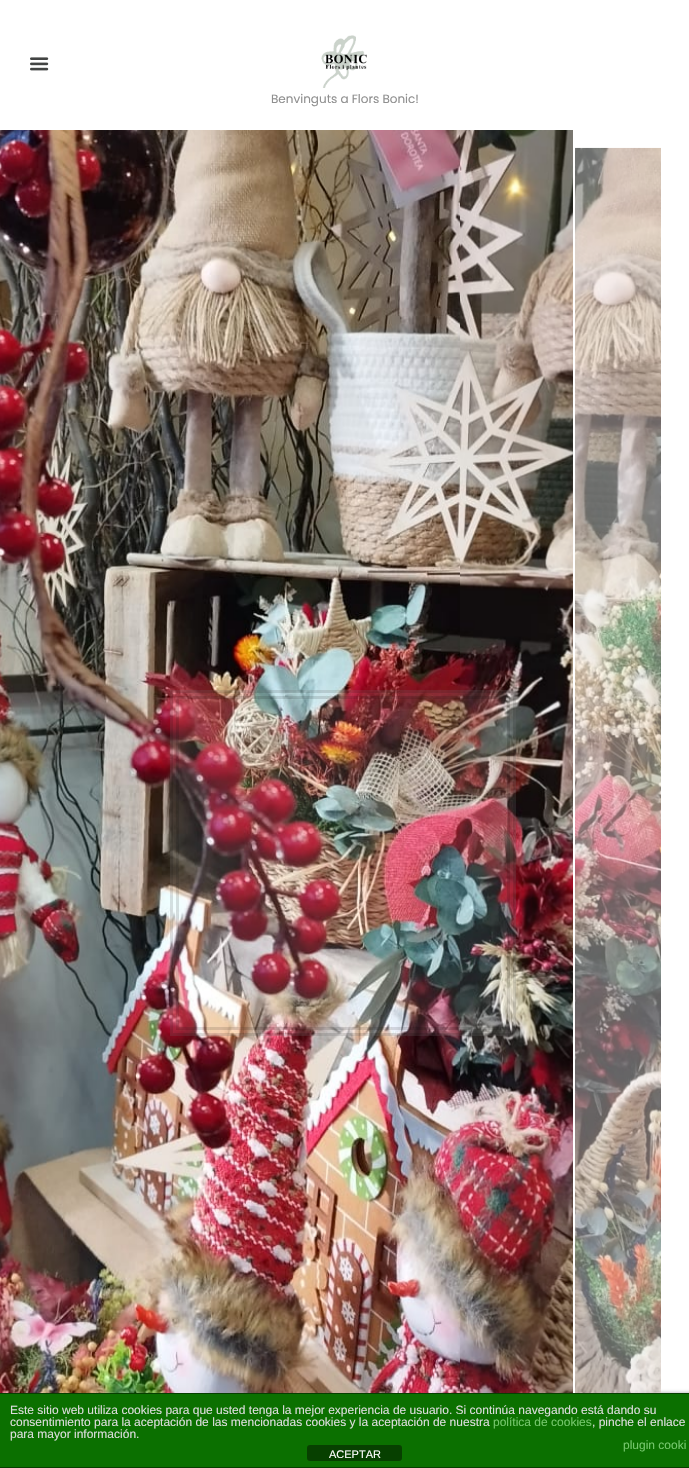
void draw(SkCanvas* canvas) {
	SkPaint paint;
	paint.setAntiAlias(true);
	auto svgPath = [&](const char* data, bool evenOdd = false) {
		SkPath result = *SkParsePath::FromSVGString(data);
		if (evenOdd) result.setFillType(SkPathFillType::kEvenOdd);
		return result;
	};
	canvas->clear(0xffffffff);
	canvas->drawImageRect(SkImages::DeferredFromEncodedData(SkData::MakeFromFileName("img1.png")), SkRect::MakeXYWH(30, 57, 19, 14), SkSamplingOptions());
	canvas->drawImageRect(SkImages::DeferredFromEncodedData(SkData::MakeFromFileName("img2.png")), SkRect::MakeXYWH(321, 35, 46, 53), SkSamplingOptions());
	SkFont f1(fontMgr->matchFamilyStyle("Poppins", SkFontStyle::Normal()), 12);
	f1.setSubpixel(true);
	paint.setColor(0xff8f8f8f);
	canvas->drawString("Benvinguts a Flors Bonic!", 271, 103, f1, paint);
	paint.setColor(0xff808080);
	paint.setMaskFilter(SkMaskFilter::MakeBlur(kNormal_SkBlurStyle, 2.5));
	canvas->drawRoundRect(SkRect::MakeXYWH(619, 1394, 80, 60), 2, 2, paint);
	paint.setMaskFilter(nullptr);
	canvas->drawImageRect(SkImages::DeferredFromEncodedData(SkData::MakeFromFileName("img3.png")), SkRect::MakeXYWH(0, 130, 661, 1263), SkSamplingOptions());
	paint.setColor(0x1affffff);
	canvas->drawRect(SkRect::MakeXYWH(170, 690, 346, 346), paint);
	paint.setStroke(true);
	paint.setStrokeWidth(3);
	paint.setColor(0x1f000000);
	canvas->drawPath(svgPath("M171.5 691.5H514.5V1034.5H171.5Z"), paint);
	canvas->drawRect(SkRect::MakeXYWH(177.5, 697.5, 331, 331), paint);
	paint.setStroke(false);
	paint.setColor(0xff0b7000);
	canvas->drawRect(SkRect::MakeXYWH(0, 1394, 689, 73), paint);
	paint.setColor(0xff064000);
	canvas->drawRect(SkRect::MakeXYWH(0, 1393, 689, 1), paint);
	canvas->drawRect(SkRect::MakeXYWH(0, 1467, 689, 1), paint);
	SkFont f2(fontMgr->matchFamilyStyle("Liberation Sans", SkFontStyle::Normal()), 12);
	f2.setSubpixel(true);
	paint.setColor(0xffdddddd);
	canvas->drawString("Este sitio web utiliza cookies para que usted tenga la mejor experiencia de usuario. Si continúa navegando está dando su", 10, 1414, f2, paint);
	canvas->drawString("consentimiento para la aceptación de las mencionadas cookies y la aceptación de nuestra", 10, 1426, f2, paint);
	paint.setColor(0xff75c76c);
	canvas->drawString("política de cookies", 493, 1426, f2, paint);
	paint.setColor(0xffdddddd);
	canvas->drawString(", pinche el enlace", 592, 1426, f2, paint);
	canvas->drawString("para mayor información.", 10, 1438, f2, paint);
	paint.setColor(0xff75c76c);
	canvas->drawString("plugin cooki", 623, 1449, f2, paint);
	paint.setColor(0xff074000);
	canvas->drawRoundRect(SkRect::MakeXYWH(307, 1445, 95, 16), 3, 3, paint);
	SkFont f3(fontMgr->matchFamilyStyle("Liberation Sans", SkFontStyle::Normal()), 11);
	f3.setSubpixel(true);
	paint.setColor(0xffffffff);
	canvas->drawString("ACEPTAR", 329, 1458, f3, paint);
}
